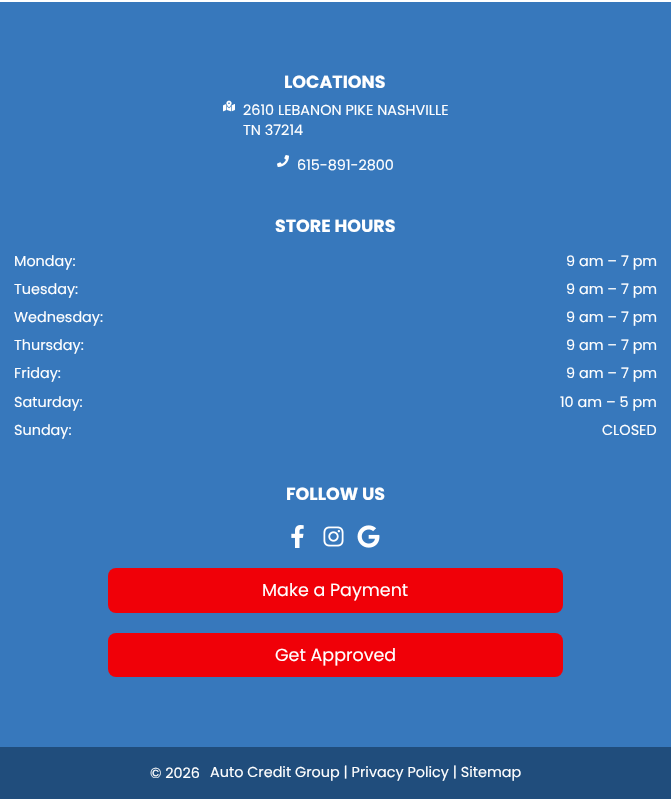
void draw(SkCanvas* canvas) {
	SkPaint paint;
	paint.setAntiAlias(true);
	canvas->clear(0xffffffff);
	paint.setColor(0xff3778bc);
	canvas->drawRect(SkRect::MakeXYWH(0, 2, 671, 745), paint);
	SkFont f1(fontMgr->matchFamilyStyle("Poppins", SkFontStyle::Bold()), 17.5);
	f1.setSubpixel(true);
	paint.setColor(0xffffffff);
	canvas->drawString("LOCATIONS", 284, 88, f1, paint);
	canvas->drawImageRect(SkImages::DeferredFromEncodedData(SkData::MakeFromFileName("img1.png")), SkRect::MakeXYWH(223, 100, 12, 12), SkSamplingOptions());
	SkFont f2(fontMgr->matchFamilyStyle("Poppins", SkFontStyle::Normal()), 14.4);
	f2.setSubpixel(true);
	canvas->drawString("2610 LEBANON PIKE NASHVILLE", 243, 115, f2, paint);
	canvas->drawString("TN 37214", 243, 135, f2, paint);
	canvas->drawImageRect(SkImages::DeferredFromEncodedData(SkData::MakeFromFileName("img2.png")), SkRect::MakeXYWH(277, 155, 12, 12), SkSamplingOptions());
	canvas->drawString("615-891-2800", 297, 170, f2, paint);
	canvas->drawString("STORE HOURS", 275, 232, f1, paint);
	canvas->drawString("Monday:", 14, 266, f2, paint);
	canvas->drawString("9 am – 7 pm", 566, 266, f2, paint);
	canvas->drawString("Tuesday:", 14, 294, f2, paint);
	canvas->drawString("9 am – 7 pm", 566, 294, f2, paint);
	canvas->drawString("Wednesday:", 14, 322, f2, paint);
	canvas->drawString("9 am – 7 pm", 566, 322, f2, paint);
	canvas->drawString("Thursday:", 14, 350, f2, paint);
	canvas->drawString("9 am – 7 pm", 566, 350, f2, paint);
	canvas->drawString("Friday:", 14, 378, f2, paint);
	canvas->drawString("9 am – 7 pm", 566, 378, f2, paint);
	canvas->drawString("Saturday:", 14, 407, f2, paint);
	canvas->drawString("10 am – 5 pm", 560, 407, f2, paint);
	canvas->drawString("Sunday:", 14, 435, f2, paint);
	canvas->drawString("CLOSED", 602, 435, f2, paint);
	canvas->drawString("FOLLOW US", 286, 500, f1, paint);
	canvas->drawImageRect(SkImages::DeferredFromEncodedData(SkData::MakeFromFileName("img3.png")), SkRect::MakeXYWH(291, 525, 13, 23), SkSamplingOptions());
	canvas->drawImageRect(SkImages::DeferredFromEncodedData(SkData::MakeFromFileName("img4.png")), SkRect::MakeXYWH(323, 526, 21, 21), SkSamplingOptions());
	canvas->drawImageRect(SkImages::DeferredFromEncodedData(SkData::MakeFromFileName("img5.png")), SkRect::MakeXYWH(357, 525, 23, 23), SkSamplingOptions());
	paint.setColor(0xfff00008);
	canvas->drawRoundRect(SkRect::MakeXYWH(108, 568, 455, 45), 8, 8, paint);
	SkFont f3(fontMgr->matchFamilyStyle("Poppins", SkFontStyle::Normal()), 17.5);
	f3.setSubpixel(true);
	paint.setColor(0xffffffff);
	canvas->drawString("Make a Payment", 262, 596, f3, paint);
	paint.setColor(0xfff00008);
	canvas->drawRoundRect(SkRect::MakeXYWH(108, 633, 455, 44), 8, 8, paint);
	paint.setColor(0xffffffff);
	canvas->drawString("Get Approved", 275, 661, f3, paint);
	paint.setColor(0xff204d7c);
	canvas->drawRect(SkRect::MakeXYWH(0, 747, 671, 52), paint);
	paint.setColor(0xffffffff);
	canvas->drawString("© 2026", 150, 778, f2, paint);
	canvas->drawString("Auto Credit Group | Privacy Policy | Sitemap", 210, 777, f2, paint);
}
